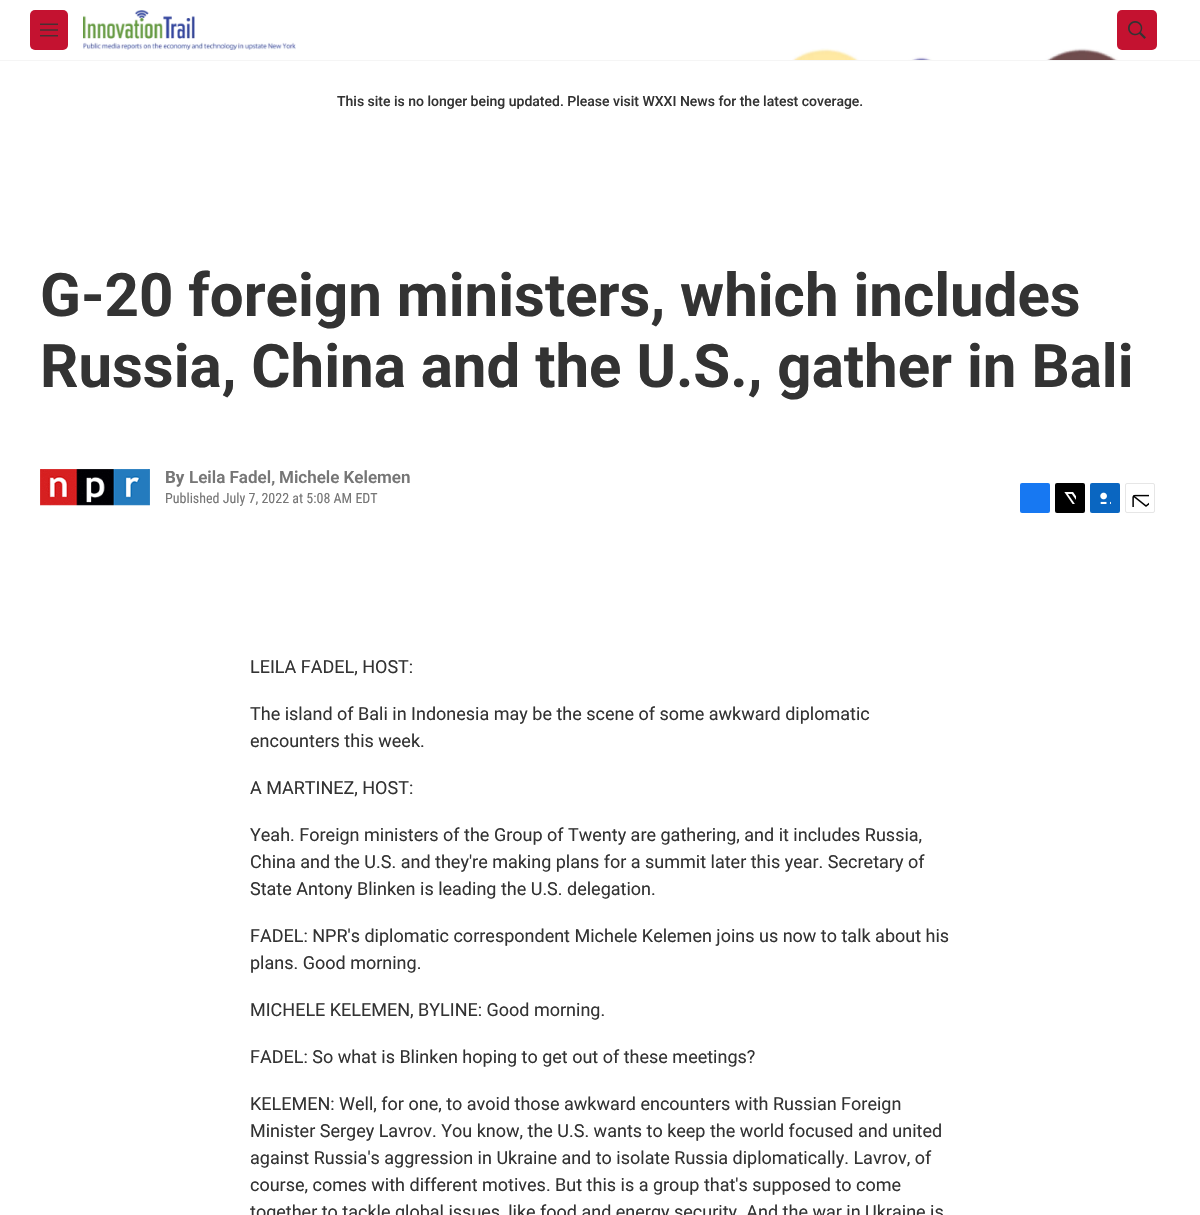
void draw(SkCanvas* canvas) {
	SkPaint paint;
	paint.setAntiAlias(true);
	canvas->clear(0xffffffff);
	paint.setColor(0xfff5f5f5);
	canvas->drawRect(SkRect::MakeXYWH(0, 60, 1200, 1), paint);
	paint.setColor(0xffc41230);
	canvas->drawRoundRect(SkRect::MakeXYWH(30, 10, 38, 40), 5, 5, paint);
	canvas->drawImageRect(SkImages::DeferredFromEncodedData(SkData::MakeFromFileName("img1.png")), SkRect::MakeXYWH(40, 23, 18, 14), SkSamplingOptions());
	canvas->drawImageRect(SkImages::DeferredFromEncodedData(SkData::MakeFromFileName("img2.png")), SkRect::MakeXYWH(83, 10, 213, 40), SkSamplingOptions());
	canvas->drawImageRect(SkImages::DeferredFromEncodedData(SkData::MakeFromFileName("img4.png")), SkRect::MakeXYWH(792, 48, 326, 12), SkSamplingOptions());
	canvas->drawRoundRect(SkRect::MakeXYWH(1117, 10, 40, 40), 5, 5, paint);
	canvas->drawImageRect(SkImages::DeferredFromEncodedData(SkData::MakeFromFileName("img3.png")), SkRect::MakeXYWH(1128, 21, 18, 18), SkSamplingOptions());
	SkFont f1(fontMgr->matchFamilyStyle("Roboto", SkFontStyle(500, SkFontStyle::kNormal_Width, SkFontStyle::kUpright_Slant)), 14);
	f1.setSubpixel(true);
	paint.setColor(0xff333333);
	canvas->drawString("This site is no longer being updated. Please visit WXXI News for the latest coverage.", 337, 106, f1, paint);
	SkFont f2(fontMgr->matchFamilyStyle("Roboto", SkFontStyle::Bold()), 60);
	f2.setSubpixel(true);
	canvas->drawString("G-20 foreign ministers, which includes", 40, 316, f2, paint);
	canvas->drawString("Russia, China and the U.S., gather in Bali", 40, 387, f2, paint);
	canvas->drawImageRect(SkImages::DeferredFromEncodedData(SkData::MakeFromFileName("img5.png")), SkRect::MakeXYWH(40, 469, 110, 37), SkSamplingOptions());
	SkFont f3(fontMgr->matchFamilyStyle("Roboto", SkFontStyle::Bold()), 17);
	f3.setSubpixel(true);
	paint.setColor(0xff767676);
	canvas->drawString("By", 165, 483, f3, paint);
	SkFont f4(fontMgr->matchFamilyStyle("Roboto", SkFontStyle(600, SkFontStyle::kNormal_Width, SkFontStyle::kUpright_Slant)), 17);
	f4.setSubpixel(true);
	canvas->drawString("Leila Fadel,", 189, 483, f4, paint);
	canvas->drawString("Michele Kelemen", 279, 483, f4, paint);
	SkFont f5(fontMgr->matchFamilyStyle("Roboto Condensed", SkFontStyle::Normal()), 14);
	f5.setSubpixel(true);
	canvas->drawString("Published July 7, 2022 at 5:08 AM EDT", 165, 503, f5, paint);
	paint.setColor(0xff1778f2);
	canvas->drawRoundRect(SkRect::MakeXYWH(1020, 483, 30, 30), 2, 2, paint);
	paint.setColor(0xff000000);
	canvas->drawRoundRect(SkRect::MakeXYWH(1055, 483, 30, 30), 2, 2, paint);
	canvas->drawImageRect(SkImages::DeferredFromEncodedData(SkData::MakeFromFileName("img6.png")), SkRect::MakeXYWH(1064, 492, 12, 12), SkSamplingOptions());
	paint.setColor(0xff0a66c1);
	canvas->drawRoundRect(SkRect::MakeXYWH(1090, 483, 30, 30), 2, 2, paint);
	canvas->drawImageRect(SkImages::DeferredFromEncodedData(SkData::MakeFromFileName("img7.png")), SkRect::MakeXYWH(1100, 492, 11, 12), SkSamplingOptions());
	paint.setStroke(true);
	paint.setStrokeWidth(1);
	paint.setColor(0xffe6e6e6);
	canvas->drawRoundRect(SkRect::MakeXYWH(1125.5, 483.5, 29, 29), 1.5, 1.5, paint);
	canvas->drawImageRect(SkImages::DeferredFromEncodedData(SkData::MakeFromFileName("img8.png")), SkRect::MakeXYWH(1132, 494, 17, 13), SkSamplingOptions());
	SkFont f6(fontMgr->matchFamilyStyle("Roboto", SkFontStyle::Normal()), 18);
	f6.setSubpixel(true);
	paint.setStroke(false);
	paint.setColor(0xff333333);
	canvas->drawString("LEILA FADEL, HOST:", 250, 673, f6, paint);
	canvas->drawString("The island of Bali in Indonesia may be the scene of some awkward diplomatic", 250, 720, f6, paint);
	canvas->drawString("encounters this week.", 250, 747, f6, paint);
	canvas->drawString("A MARTINEZ, HOST:", 250, 794, f6, paint);
	canvas->drawString("Yeah. Foreign ministers of the Group of Twenty are gathering, and it includes Russia,", 250, 841, f6, paint);
	canvas->drawString("China and the U.S. and they're making plans for a summit later this year. Secretary of", 250, 868, f6, paint);
	canvas->drawString("State Antony Blinken is leading the U.S. delegation.", 250, 895, f6, paint);
	canvas->drawString("FADEL: NPR's diplomatic correspondent Michele Kelemen joins us now to talk about his", 250, 942, f6, paint);
	canvas->drawString("plans. Good morning.", 250, 969, f6, paint);
	canvas->drawString("MICHELE KELEMEN, BYLINE: Good morning.", 250, 1016, f6, paint);
	canvas->drawString("FADEL: So what is Blinken hoping to get out of these meetings?", 250, 1063, f6, paint);
	canvas->drawString("KELEMEN: Well, for one, to avoid those awkward encounters with Russian Foreign", 250, 1110, f6, paint);
	canvas->drawString("Minister Sergey Lavrov. You know, the U.S. wants to keep the world focused and united", 250, 1137, f6, paint);
	canvas->drawString("against Russia's aggression in Ukraine and to isolate Russia diplomatically. Lavrov, of", 250, 1164, f6, paint);
	canvas->drawString("course, comes with different motives. But this is a group that's supposed to come", 250, 1191, f6, paint);
	canvas->drawString("together to tackle global issues, like food and energy security. And the war in Ukraine is", 250, 1218, f6, paint);
}
